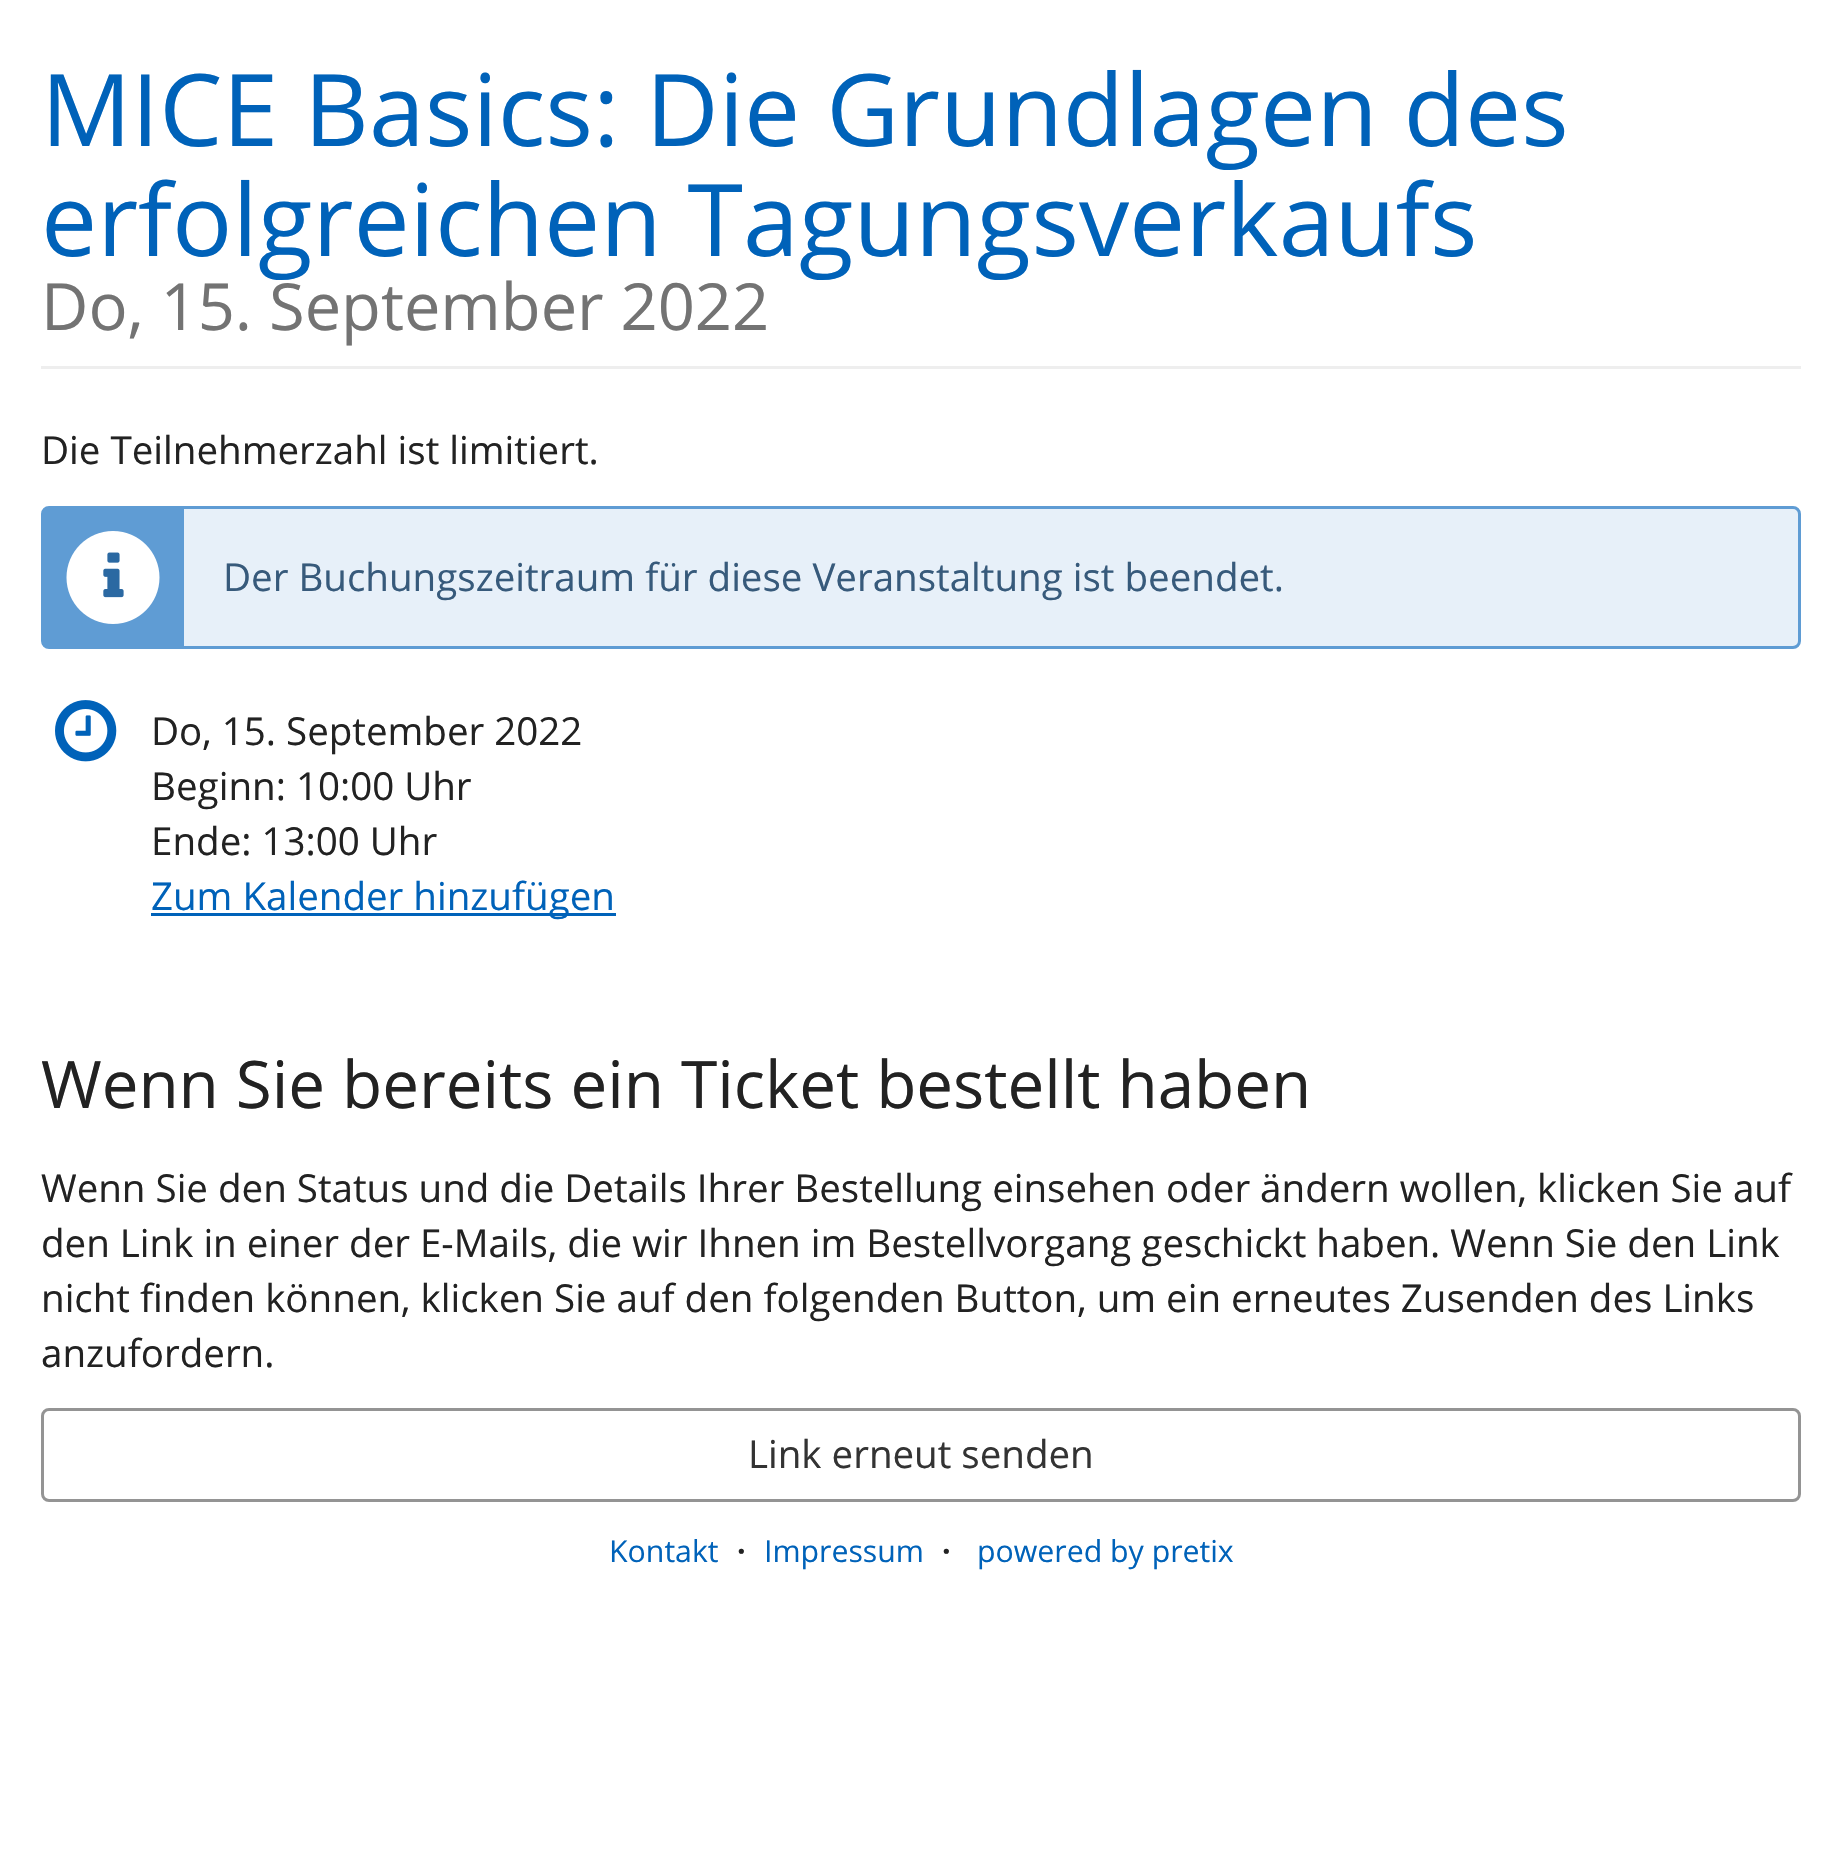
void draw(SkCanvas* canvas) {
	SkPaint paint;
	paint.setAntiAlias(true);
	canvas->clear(0xffffffff);
	paint.setColor(0xffeeeeee);
	canvas->drawRect(SkRect::MakeXYWH(41, 366, 1760, 3), paint);
	SkFont f1(fontMgr->matchFamilyStyle("Open Sans", SkFontStyle::Normal()), 100.1);
	f1.setSubpixel(true);
	paint.setColor(0xff0062b9);
	canvas->drawString("MICE Basics: Die Grundlagen des", 41, 146, f1, paint);
	canvas->drawString("erfolgreichen Tagungsverkaufs", 41, 256, f1, paint);
	SkFont f2(fontMgr->matchFamilyStyle("Open Sans", SkFontStyle::Normal()), 65);
	f2.setSubpixel(true);
	paint.setColor(0xff737373);
	canvas->drawString("Do, 15. September 2022", 41, 330, f2, paint);
	SkFont f3(fontMgr->matchFamilyStyle("Open Sans", SkFontStyle::Normal()), 38.5);
	f3.setSubpixel(true);
	paint.setColor(0xff222222);
	canvas->drawString("Die Teilnehmerzahl ist limitiert.", 41, 464, f3, paint);
	paint.setColor(0xffe7f0f9);
	canvas->drawRoundRect(SkRect::MakeXYWH(42.5, 507.5, 1757, 140), 6.5, 6.5, paint);
	paint.setStroke(true);
	paint.setStrokeWidth(3);
	paint.setColor(0xff5f9cd4);
	canvas->drawRoundRect(SkRect::MakeXYWH(42.5, 507.5, 1757, 140), 6.5, 6.5, paint);
	paint.setStroke(false);
	canvas->drawRect(SkRect::MakeXYWH(44, 509, 140, 137), paint);
	canvas->drawImageRect(SkImages::DeferredFromEncodedData(SkData::MakeFromFileName("img1.png")), SkRect::MakeXYWH(66, 531, 94, 93), SkSamplingOptions());
	paint.setColor(0xff375a7b);
	canvas->drawString("Der Buchungszeitraum für diese Veranstaltung ist beendet.", 223, 591, f3, paint);
	canvas->drawImageRect(SkImages::DeferredFromEncodedData(SkData::MakeFromFileName("img2.png")), SkRect::MakeXYWH(55, 700, 62, 62), SkSamplingOptions());
	paint.setColor(0xff222222);
	canvas->drawString("Do, 15. September 2022", 151, 745, f3, paint);
	canvas->drawString("Beginn: 10:00 Uhr", 151, 800, f3, paint);
	canvas->drawString("Ende: 13:00 Uhr", 151, 855, f3, paint);
	paint.setColor(0xff0062b9);
	canvas->drawRect(SkRect::MakeXYWH(151, 913, 465, 3), paint);
	canvas->drawString("Zum Kalender hinzufügen", 151, 910, f3, paint);
	SkFont f4(fontMgr->matchFamilyStyle("Open Sans", SkFontStyle::Normal()), 65.5);
	f4.setSubpixel(true);
	paint.setColor(0xff222222);
	canvas->drawString("Wenn Sie bereits ein Ticket bestellt haben", 41, 1108, f4, paint);
	canvas->drawString("Wenn Sie den Status und die Details Ihrer Bestellung einsehen oder ändern wollen, klicken Sie auf", 41, 1202, f3, paint);
	canvas->drawString("den Link in einer der E-Mails, die wir Ihnen im Bestellvorgang geschickt haben. Wenn Sie den Link", 41, 1257, f3, paint);
	canvas->drawString("nicht finden können, klicken Sie auf den folgenden Button, um ein erneutes Zusenden des Links", 41, 1312, f3, paint);
	canvas->drawString("anzufordern.", 41, 1367, f3, paint);
	paint.setStroke(true);
	paint.setColor(0xff949494);
	canvas->drawRoundRect(SkRect::MakeXYWH(42.5, 1409.5, 1757, 91), 6.5, 6.5, paint);
	paint.setStroke(false);
	paint.setColor(0xff333333);
	canvas->drawString("Link erneut senden", 748, 1468, f3, paint);
	SkFont f5(fontMgr->matchFamilyStyle("Open Sans", SkFontStyle::Normal()), 30.25);
	f5.setSubpixel(true);
	paint.setColor(0xff0062b9);
	canvas->drawString("Kontakt", 609, 1562, f5, paint);
	SkFont f6(fontMgr->matchFamilyStyle("Open Sans", SkFontStyle::Bold()), 30.25);
	f6.setSubpixel(true);
	paint.setColor(0xff222222);
	canvas->drawString("·", 737, 1562, f6, paint);
	paint.setColor(0xff0062b9);
	canvas->drawString("Impressum", 764, 1562, f5, paint);
	paint.setColor(0xff222222);
	canvas->drawString("·", 942, 1562, f6, paint);
	paint.setColor(0xff0062b9);
	canvas->drawString("powered by pretix", 977, 1562, f5, paint);
}
